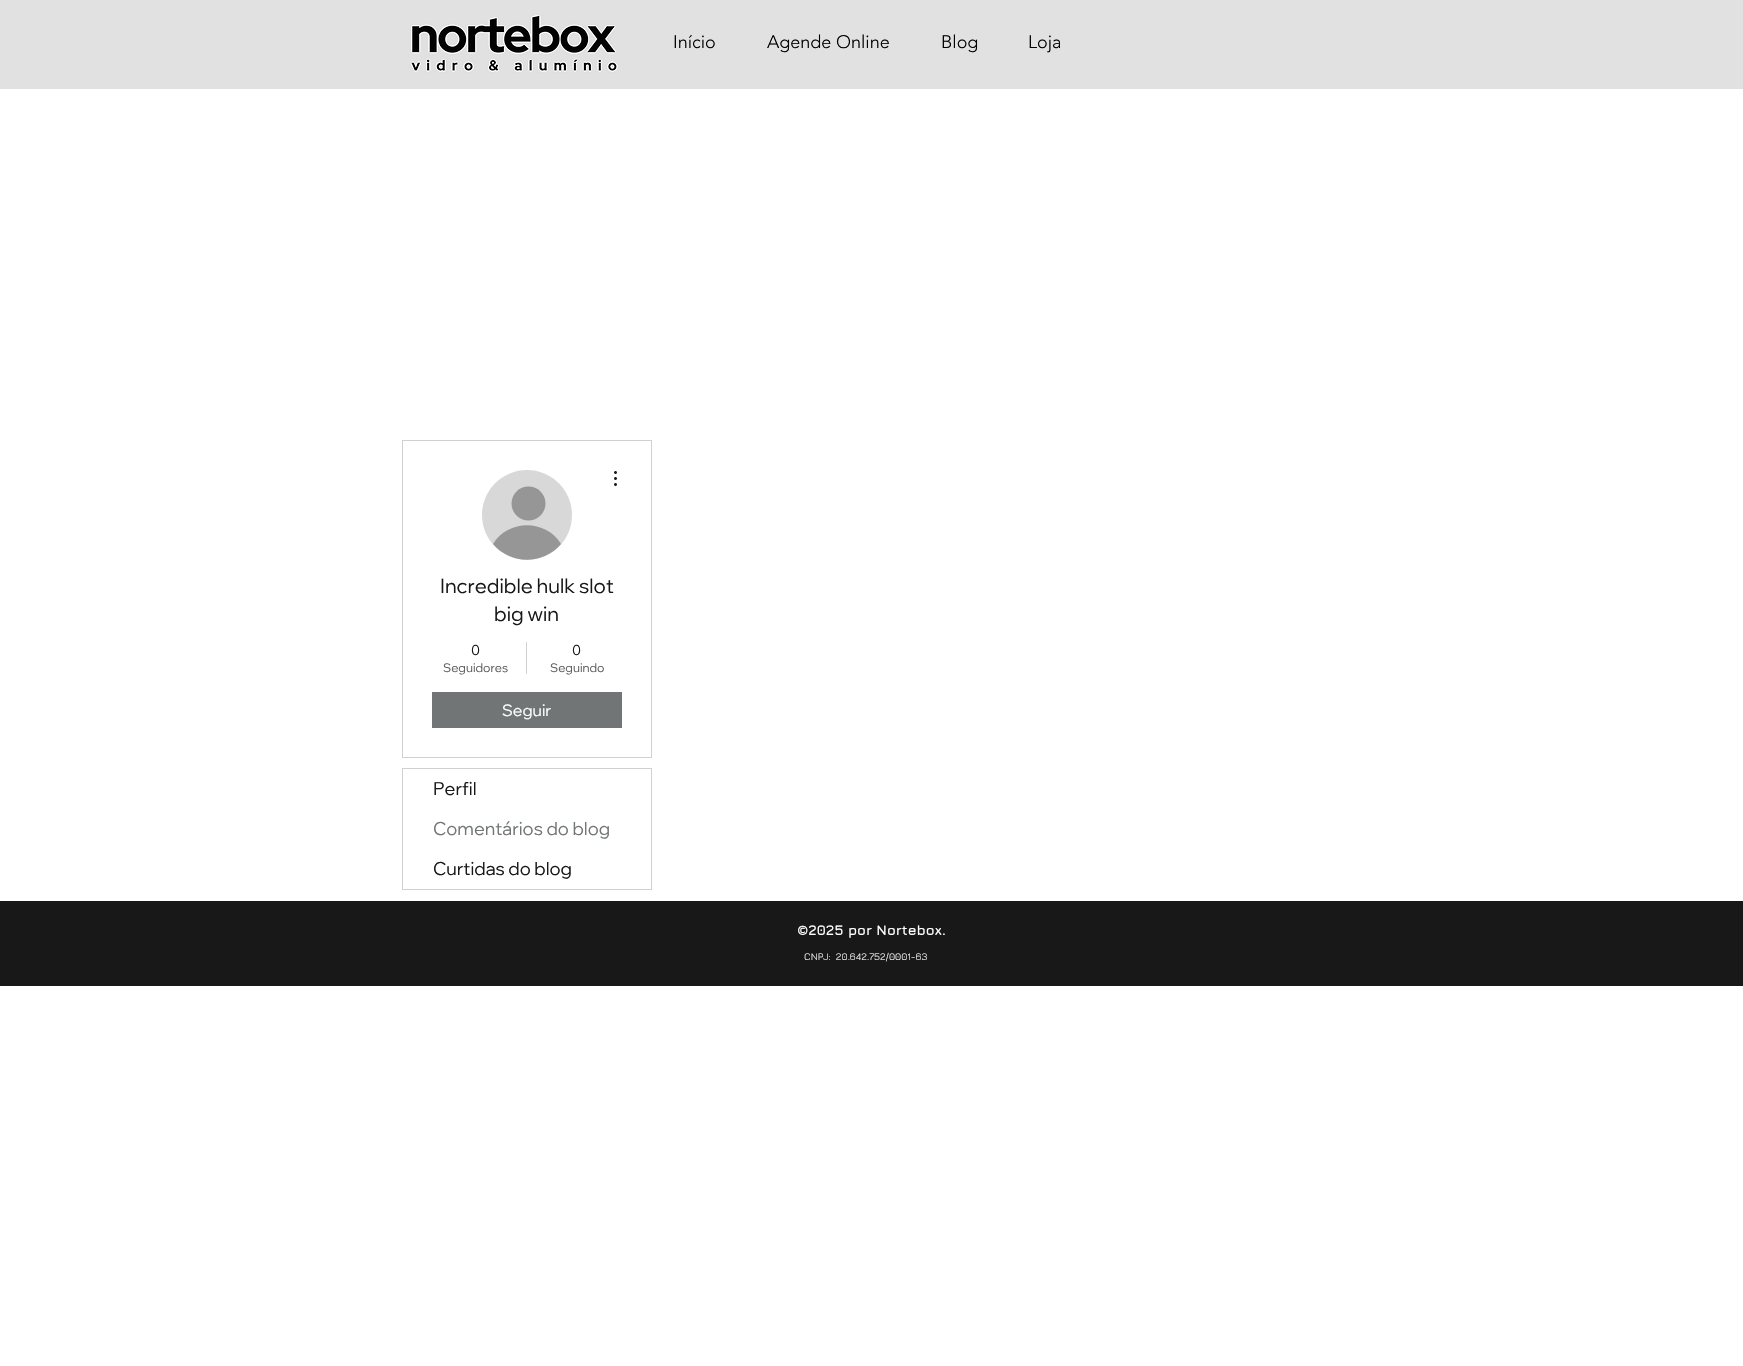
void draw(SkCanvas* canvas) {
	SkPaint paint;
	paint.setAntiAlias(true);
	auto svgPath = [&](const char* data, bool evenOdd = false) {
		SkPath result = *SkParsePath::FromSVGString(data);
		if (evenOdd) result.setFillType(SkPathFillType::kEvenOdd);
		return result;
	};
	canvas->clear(0xffffffff);
	paint.setColor(0xffe1e1e1);
	canvas->drawRect(SkRect::MakeXYWH(0, 0, 1743, 89), paint);
	canvas->drawImageRect(SkImages::DeferredFromEncodedData(SkData::MakeFromFileName("img1.png")), SkRect::MakeXYWH(410, 14, 209, 59), SkSamplingOptions());
	SkFont f1(fontMgr->matchFamilyStyle("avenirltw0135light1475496", SkFontStyle(300, SkFontStyle::kNormal_Width, SkFontStyle::kUpright_Slant)), 18);
	f1.setSubpixel(true);
	paint.setColor(0xff000000);
	canvas->drawString("Início", 673, 48, f1, paint);
	canvas->drawString("Agende Online", 767, 48, f1, paint);
	canvas->drawString("Blog", 941, 48, f1, paint);
	canvas->drawString("Loja", 1028, 48, f1, paint);
	paint.setStroke(true);
	paint.setStrokeWidth(1);
	paint.setColor(0xffd1d1d1);
	canvas->drawRect(SkRect::MakeXYWH(402.5, 440.5, 249, 317), paint);
	paint.setStroke(false);
	paint.setColor(0xffd8d8d8);
	canvas->drawCircle(527, 515, 45, paint);
	paint.setColor(0xff969696);
	canvas->drawCircle(528.5, 503.5, 17, paint);
	canvas->drawPath(svgPath("M561 544C543 565 511 565 493 544C508 519 546 519 561 544Z"), paint);
	canvas->drawImageRect(SkImages::DeferredFromEncodedData(SkData::MakeFromFileName("img2.png")), SkRect::MakeXYWH(614, 471, 3, 15), SkSamplingOptions());
	SkFont f2(fontMgr->matchFamilyStyle("Wix Madefor Display", SkFontStyle::Normal()), 20);
	f2.setSubpixel(true);
	paint.setColor(0xff181818);
	canvas->drawString("Incredible hulk slot", 440, 593, f2, paint);
	canvas->drawString("big win", 494, 621, f2, paint);
	SkFont f3(fontMgr->matchFamilyStyle("Wix Madefor Display", SkFontStyle::Normal()), 14);
	f3.setSubpixel(true);
	canvas->drawString("0", 471, 655, f3, paint);
	SkFont f4(fontMgr->matchFamilyStyle("Wix Madefor Display", SkFontStyle::Normal()), 12);
	f4.setSubpixel(true);
	paint.setColor(0xff5d5d5d);
	canvas->drawString("Seguidores", 443, 672, f4, paint);
	paint.setColor(0xffd1d1d1);
	canvas->drawRect(SkRect::MakeXYWH(526, 642, 1, 32), paint);
	paint.setColor(0xff181818);
	canvas->drawString("0", 572, 655, f3, paint);
	paint.setColor(0xff5d5d5d);
	canvas->drawString("Seguindo", 550, 672, f4, paint);
	paint.setColor(0xff717576);
	canvas->drawRect(SkRect::MakeXYWH(432, 692, 190, 36), paint);
	SkFont f5(fontMgr->matchFamilyStyle("Wix Madefor Display", SkFontStyle::Normal()), 16);
	f5.setSubpixel(true);
	paint.setColor(0xffffffff);
	canvas->drawString("Seguir", 502, 716, f5, paint);
	paint.setStroke(true);
	paint.setColor(0xffd1d1d1);
	canvas->drawRect(SkRect::MakeXYWH(402.5, 768.5, 249, 121), paint);
	SkFont f6(fontMgr->matchFamilyStyle("Wix Madefor Display", SkFontStyle::Normal()), 18);
	f6.setSubpixel(true);
	paint.setStroke(false);
	paint.setColor(0xff181818);
	canvas->drawString("Perfil", 433, 795, f6, paint);
	paint.setColor(0xff717576);
	canvas->drawString("Comentários do blog", 433, 835, f6, paint);
	paint.setColor(0xff181818);
	canvas->drawString("Curtidas do blog", 433, 875, f6, paint);
	canvas->drawRect(SkRect::MakeXYWH(0, 901, 1743, 85), paint);
	SkFont f7(fontMgr->matchFamilyStyle("Jura", SkFontStyle::Bold()), 14);
	f7.setSubpixel(true);
	paint.setColor(0xffffffff);
	canvas->drawString("©2025 por Nortebox.", 797, 935, f7, paint);
	SkFont f8(fontMgr->matchFamilyStyle("Jura", SkFontStyle::Normal()), 10);
	f8.setSubpixel(true);
	canvas->drawString("CNPJ:  20.642.752/0001-63", 804, 960, f8, paint);
}
